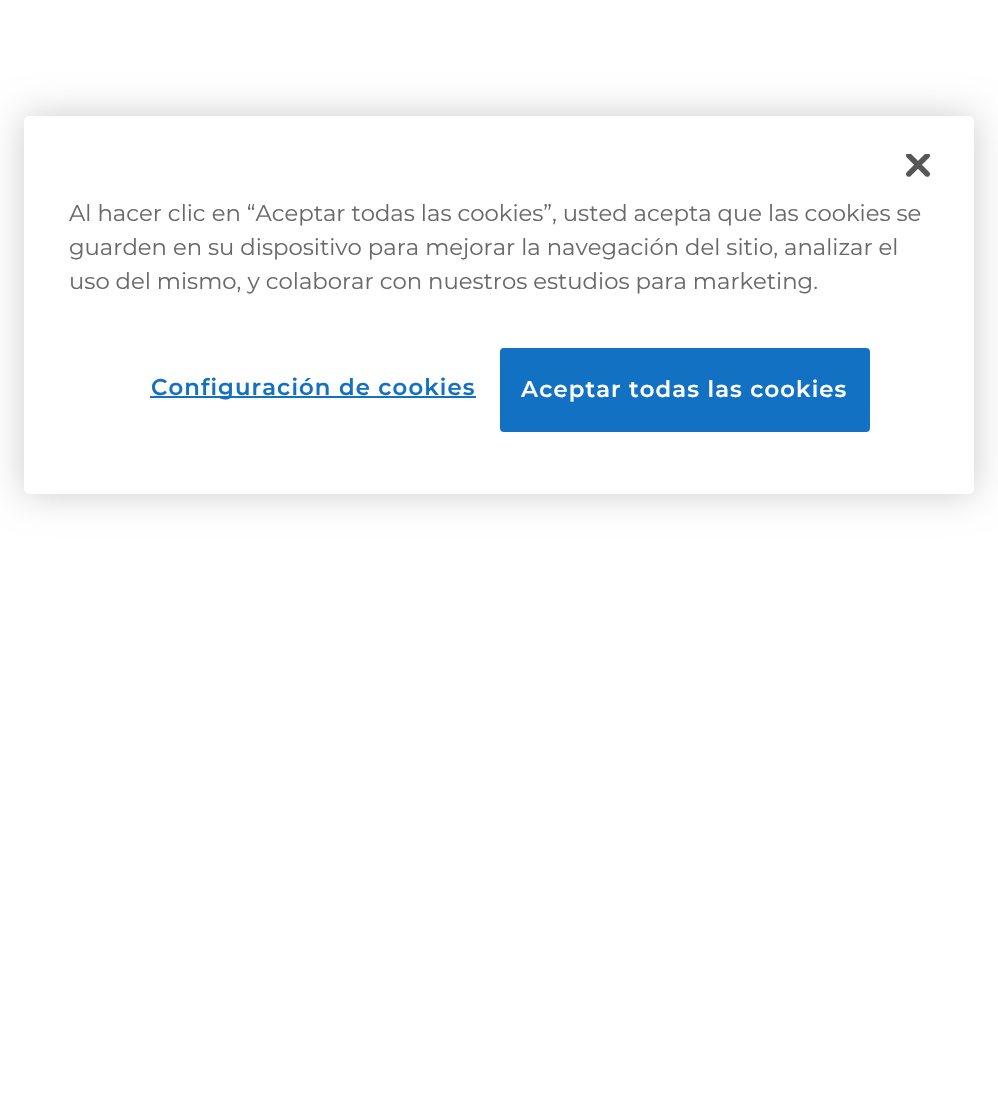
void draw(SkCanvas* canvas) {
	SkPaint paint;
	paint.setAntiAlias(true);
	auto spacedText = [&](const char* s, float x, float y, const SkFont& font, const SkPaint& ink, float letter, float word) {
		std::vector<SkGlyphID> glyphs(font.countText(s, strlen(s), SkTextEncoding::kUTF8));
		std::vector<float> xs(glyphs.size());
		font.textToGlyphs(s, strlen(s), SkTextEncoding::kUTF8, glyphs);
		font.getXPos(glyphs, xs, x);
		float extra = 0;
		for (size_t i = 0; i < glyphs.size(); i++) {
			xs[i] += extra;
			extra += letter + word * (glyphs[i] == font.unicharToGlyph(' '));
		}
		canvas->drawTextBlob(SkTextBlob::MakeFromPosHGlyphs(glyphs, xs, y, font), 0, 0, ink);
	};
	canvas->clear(0xffffffff);
	paint.setColor(0x33000000);
	paint.setMaskFilter(SkMaskFilter::MakeBlur(kNormal_SkBlurStyle, 18));
	canvas->drawRoundRect(SkRect::MakeXYWH(24, 116, 950, 378), 5, 5, paint);
	paint.setMaskFilter(nullptr);
	paint.setColor(0xffffffff);
	canvas->drawRoundRect(SkRect::MakeXYWH(24, 116, 950, 378), 5, 5, paint);
	canvas->drawImageRect(SkImages::DeferredFromEncodedData(SkData::MakeFromFileName("img1.png")), SkRect::MakeXYWH(906, 154, 24, 23), SkSamplingOptions());
	SkFont f1(fontMgr->matchFamilyStyle("Montserrat", SkFontStyle::Normal()), 22.75);
	f1.setSubpixel(true);
	paint.setColor(0xff696969);
	canvas->drawString("Al hacer clic en “Aceptar todas las cookies”, usted acepta que las cookies se", 69, 221, f1, paint);
	canvas->drawString("guarden en su dispositivo para mejorar la navegación del sitio, analizar el", 69, 255, f1, paint);
	canvas->drawString("uso del mismo, y colaborar con nuestros estudios para marketing.", 69, 289, f1, paint);
	paint.setColor(0xff1371c3);
	canvas->drawRect(SkRect::MakeXYWH(150, 396, 326, 2), paint);
	SkFont f2(fontMgr->matchFamilyStyle("Montserrat", SkFontStyle(600, SkFontStyle::kNormal_Width, SkFontStyle::kUpright_Slant)), 22.75);
	f2.setSubpixel(true);
	spacedText("Configuración de cookies", 151, 395, f2, paint, 1.1, 0);
	canvas->drawRoundRect(SkRect::MakeXYWH(501, 349, 368, 82), 3, 3, paint);
	paint.setStroke(true);
	paint.setStrokeWidth(2);
	canvas->drawRoundRect(SkRect::MakeXYWH(501, 349, 368, 82), 3, 3, paint);
	paint.setStroke(false);
	paint.setColor(0xffffffff);
	spacedText("Aceptar todas las cookies", 521, 397, f2, paint, 1.1, 0);
}
